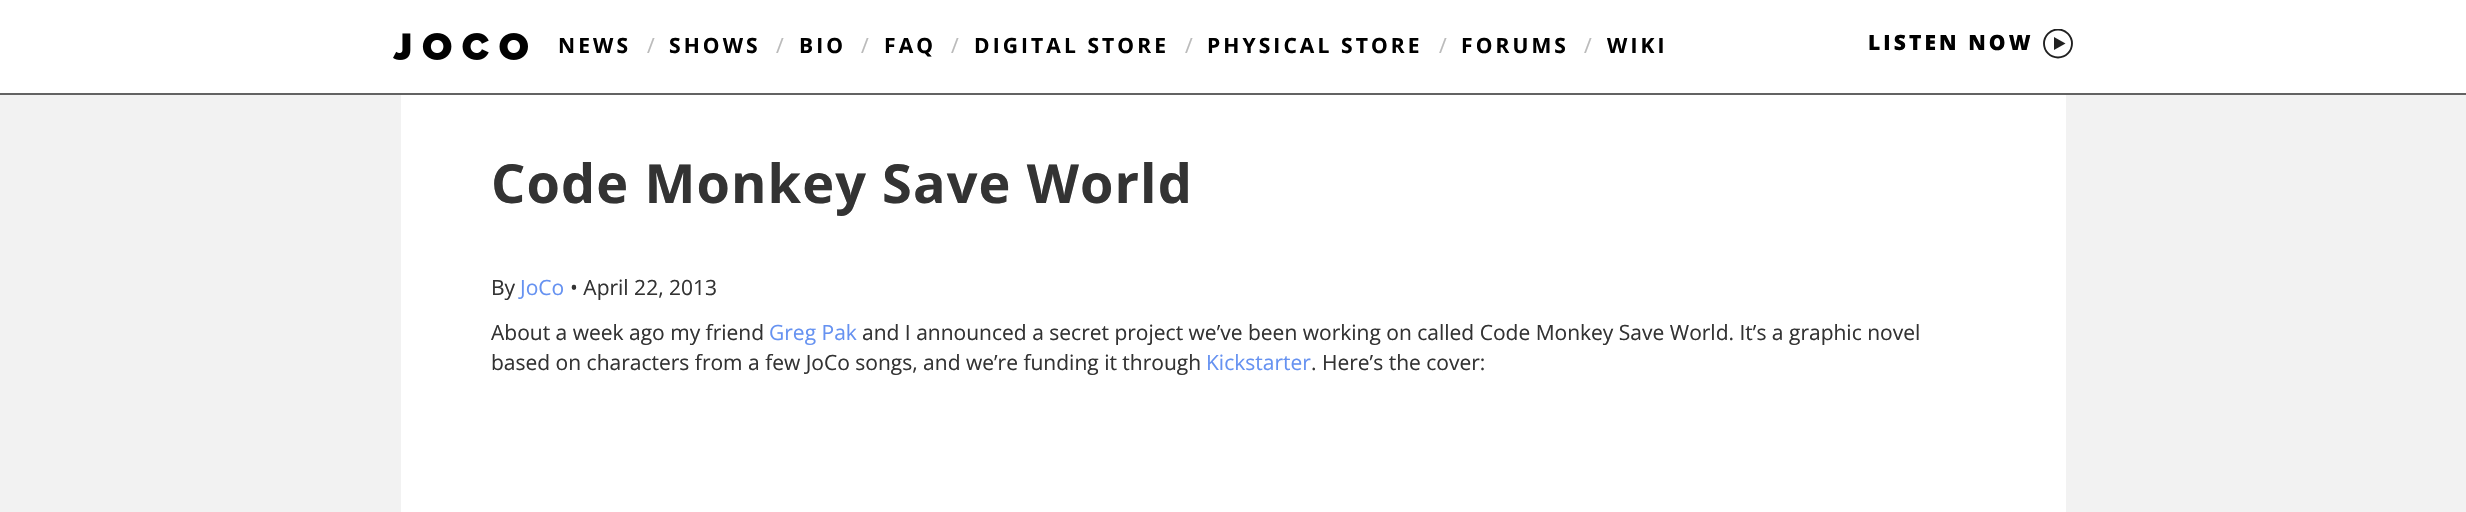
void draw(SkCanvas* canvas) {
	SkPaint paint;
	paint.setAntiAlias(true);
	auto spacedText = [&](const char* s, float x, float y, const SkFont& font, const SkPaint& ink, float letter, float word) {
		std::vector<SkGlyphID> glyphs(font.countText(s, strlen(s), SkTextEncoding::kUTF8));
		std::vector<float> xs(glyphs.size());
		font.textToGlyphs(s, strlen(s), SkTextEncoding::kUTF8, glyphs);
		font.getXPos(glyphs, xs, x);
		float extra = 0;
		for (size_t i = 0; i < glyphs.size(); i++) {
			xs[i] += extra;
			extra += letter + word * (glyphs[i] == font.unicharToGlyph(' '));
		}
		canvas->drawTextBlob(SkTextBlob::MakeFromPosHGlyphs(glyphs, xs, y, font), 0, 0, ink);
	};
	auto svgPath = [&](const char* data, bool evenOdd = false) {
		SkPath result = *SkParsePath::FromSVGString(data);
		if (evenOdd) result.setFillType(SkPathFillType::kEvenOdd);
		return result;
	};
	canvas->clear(0xfff2f2f2);
	paint.setColor(0xffffffff);
	canvas->drawRect(SkRect::MakeXYWH(0, 0, 2466, 93), paint);
	paint.setColor(0xff636363);
	canvas->drawRect(SkRect::MakeXYWH(0, 93, 2466, 2), paint);
	canvas->drawImageRect(SkImages::DeferredFromEncodedData(SkData::MakeFromFileName("img1.png")), SkRect::MakeXYWH(393, 33, 135, 27), SkSamplingOptions());
	SkFont f1(fontMgr->matchFamilyStyle("Open Sans", SkFontStyle::Bold()), 21);
	f1.setSubpixel(true);
	paint.setColor(0xff000000);
	spacedText("NEWS", 558, 53, f1, paint, 3.1, 0);
	SkFont f2(fontMgr->matchFamilyStyle("Open Sans", SkFontStyle::Normal()), 21);
	f2.setSubpixel(true);
	paint.setColor(0xffbbbbbb);
	canvas->drawString("/", 647, 53, f2, paint);
	paint.setColor(0xff000000);
	spacedText("SHOWS", 669, 53, f1, paint, 3.1, 0);
	paint.setColor(0xffbbbbbb);
	canvas->drawString("/", 776, 53, f2, paint);
	paint.setColor(0xff000000);
	spacedText("BIO", 799, 53, f1, paint, 3.1, 0);
	paint.setColor(0xffbbbbbb);
	canvas->drawString("/", 861, 53, f2, paint);
	paint.setColor(0xff000000);
	spacedText("FAQ", 884, 53, f1, paint, 3.1, 0);
	paint.setColor(0xffbbbbbb);
	canvas->drawString("/", 951, 53, f2, paint);
	paint.setColor(0xff000000);
	spacedText("DIGITAL STORE", 974, 53, f1, paint, 3.1, 0);
	paint.setColor(0xffbbbbbb);
	canvas->drawString("/", 1185, 53, f2, paint);
	paint.setColor(0xff000000);
	spacedText("PHYSICAL STORE", 1207, 53, f1, paint, 3.1, 0);
	paint.setColor(0xffbbbbbb);
	canvas->drawString("/", 1439, 53, f2, paint);
	paint.setColor(0xff000000);
	spacedText("FORUMS", 1461, 53, f1, paint, 3.1, 0);
	paint.setColor(0xffbbbbbb);
	canvas->drawString("/", 1584, 53, f2, paint);
	paint.setColor(0xff000000);
	spacedText("WIKI", 1607, 53, f1, paint, 3.1, 0);
	SkFont f3(fontMgr->matchFamilyStyle("Open Sans", SkFontStyle(800, SkFontStyle::kNormal_Width, SkFontStyle::kUpright_Slant)), 21);
	f3.setSubpixel(true);
	spacedText("LISTEN NOW", 1868, 50, f3, paint, 3.1, 0);
	paint.setColor(0xff202020);
	canvas->drawPath(svgPath("M2054 37L2065.5 43.5L2054 50Z"), paint);
	canvas->save();
	canvas->clipRect(SkRect::MakeXYWH(2043, 29, 30, 30));
	paint.setStroke(true);
	paint.setStrokeWidth(1.9);
	canvas->drawCircle(2058, 43.5, 14, paint);
	canvas->restore();
	paint.setStroke(false);
	paint.setColor(0xffffffff);
	canvas->drawRect(SkRect::MakeXYWH(401, 95, 1665, 417), paint);
	SkFont f4(fontMgr->matchFamilyStyle("Open Sans", SkFontStyle::Bold()), 54);
	f4.setSubpixel(true);
	paint.setColor(0xff333333);
	spacedText("Code Monkey Save World", 491, 203, f4, paint, 1.1, 0);
	canvas->drawString("By", 491, 295, f2, paint);
	paint.setColor(0xff6692f1);
	canvas->drawString("JoCo", 520, 295, f2, paint);
	paint.setColor(0xff333333);
	canvas->drawString("• April 22, 2013", 570, 295, f2, paint);
	canvas->drawString("About a week ago my friend", 491, 340, f2, paint);
	paint.setColor(0xff6692f1);
	canvas->drawString("Greg Pak", 769, 340, f2, paint);
	paint.setColor(0xff333333);
	canvas->drawString("and I announced a secret project we’ve been working on called Code Monkey Save World. It’s a graphic novel", 862, 340, f2, paint);
	canvas->drawString("based on characters from a few JoCo songs, and we’re funding it through", 491, 370, f2, paint);
	paint.setColor(0xff6692f1);
	canvas->drawString("Kickstarter", 1206, 370, f2, paint);
	paint.setColor(0xff333333);
	canvas->drawString(". Here’s the cover:", 1311, 370, f2, paint);
}
